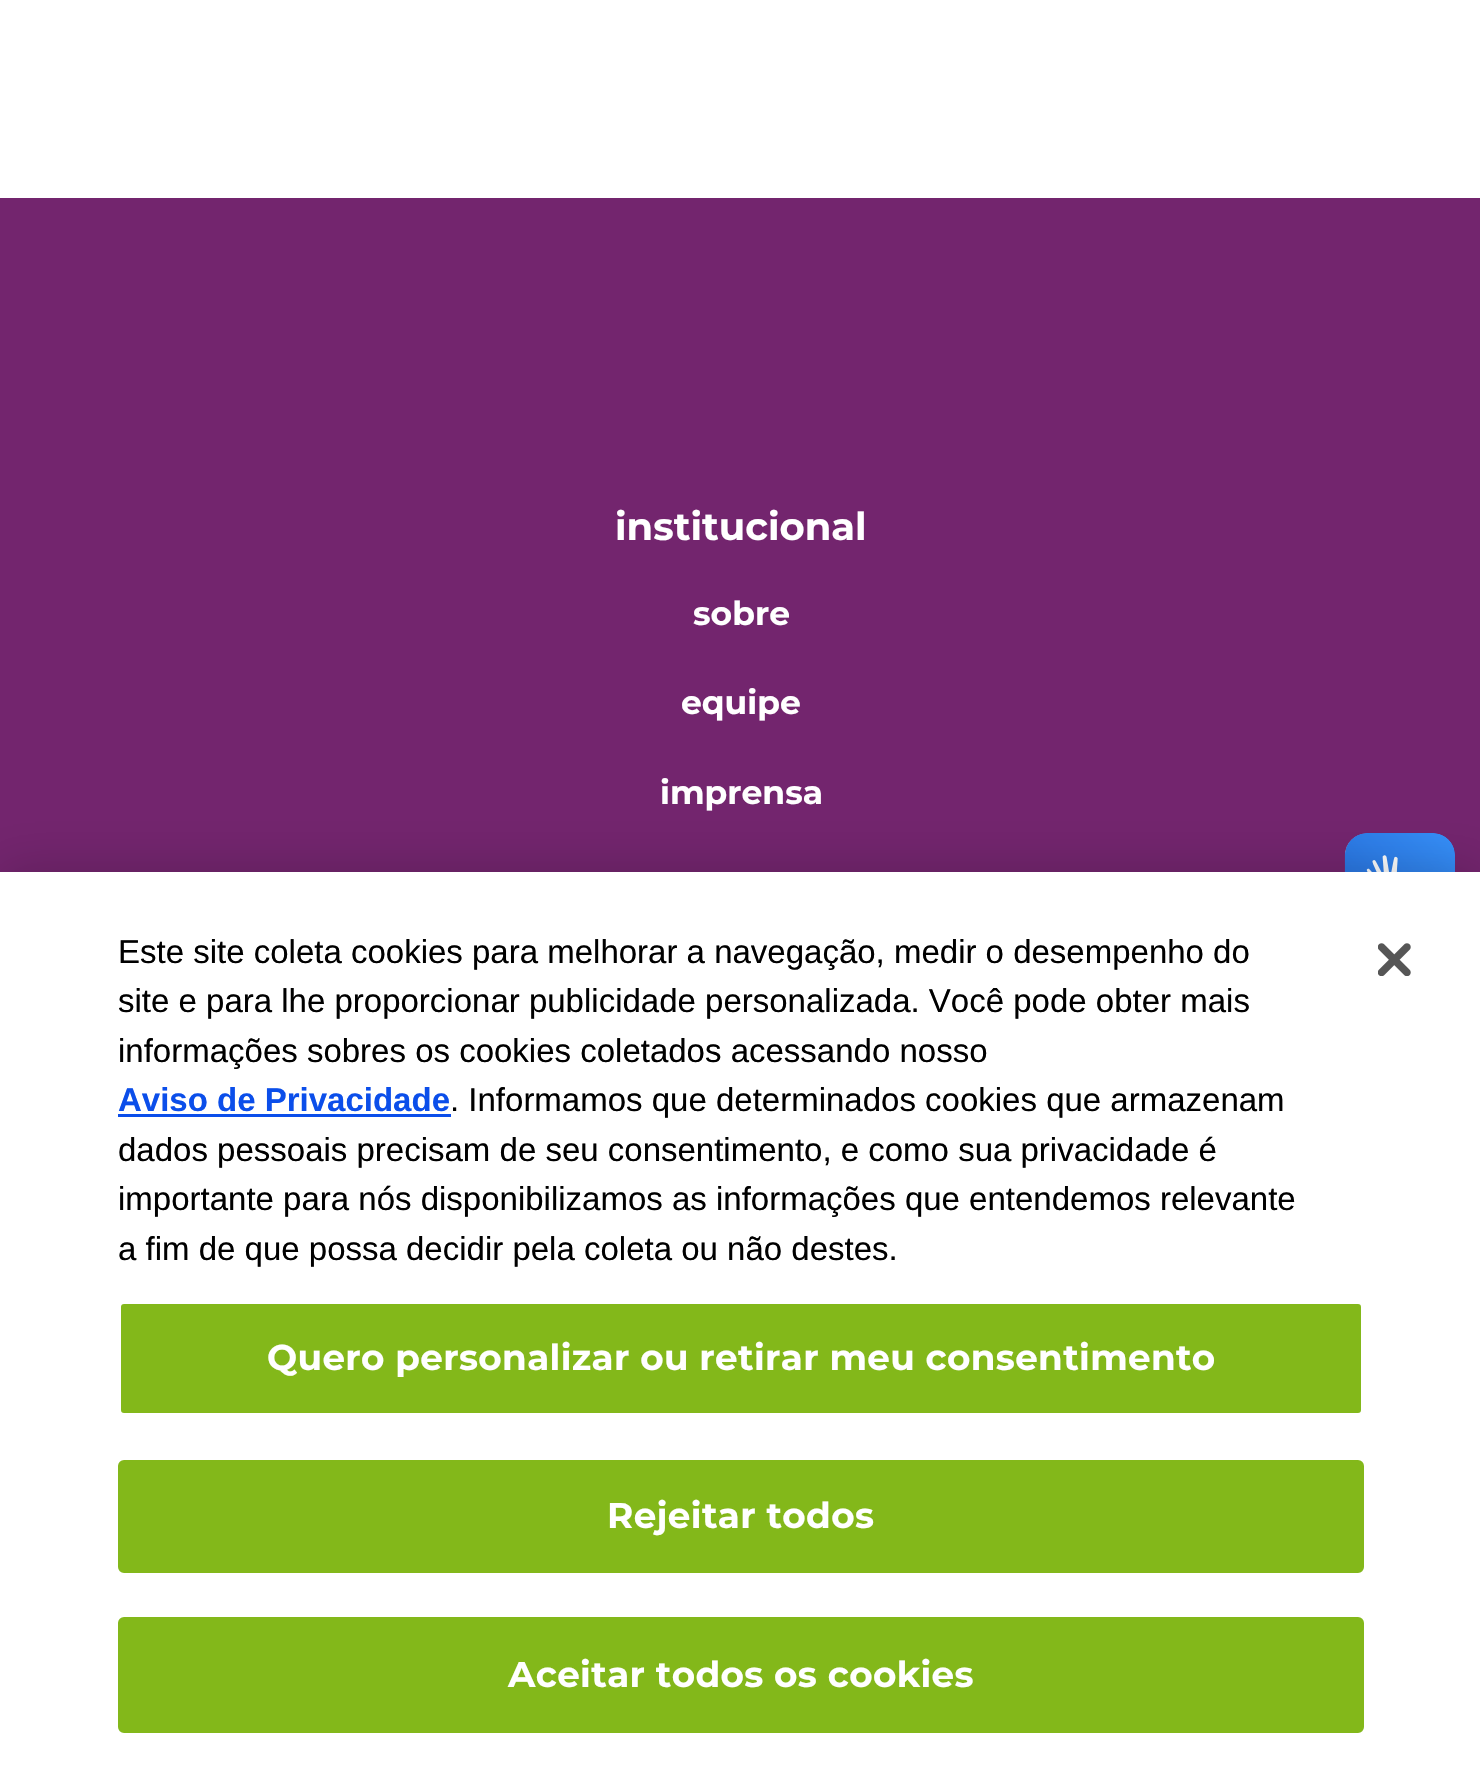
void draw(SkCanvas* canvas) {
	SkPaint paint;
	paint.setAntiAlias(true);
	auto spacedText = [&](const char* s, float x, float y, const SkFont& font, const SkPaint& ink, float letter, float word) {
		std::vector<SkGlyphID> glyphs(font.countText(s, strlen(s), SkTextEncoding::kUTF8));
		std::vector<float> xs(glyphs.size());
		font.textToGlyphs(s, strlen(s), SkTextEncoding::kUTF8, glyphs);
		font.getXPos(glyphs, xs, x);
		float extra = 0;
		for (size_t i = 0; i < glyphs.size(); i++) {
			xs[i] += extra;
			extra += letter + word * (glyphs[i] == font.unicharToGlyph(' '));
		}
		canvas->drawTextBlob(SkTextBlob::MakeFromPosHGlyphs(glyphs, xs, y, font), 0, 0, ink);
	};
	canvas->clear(0xffffffff);
	paint.setColor(0xff73256e);
	canvas->drawRect(SkRect::MakeXYWH(0, 198, 1480, 674), paint);
	SkFont f1(fontMgr->matchFamilyStyle("Montserrat", SkFontStyle::Bold()), 38.5);
	f1.setSubpixel(true);
	paint.setColor(0xffffffff);
	canvas->drawString("institucional", 615, 540, f1, paint);
	SkFont f2(fontMgr->matchFamilyStyle("Montserrat", SkFontStyle::Bold()), 33);
	f2.setSubpixel(true);
	canvas->drawString("sobre", 693, 625, f2, paint);
	canvas->drawString("equipe", 681, 714, f2, paint);
	canvas->drawString("imprensa", 660, 804, f2, paint);
	canvas->drawImageRect(SkImages::DeferredFromEncodedData(SkData::MakeFromFileName("img1.png")), SkRect::MakeXYWH(1344, 833, 111, 39), SkSamplingOptions());
	canvas->drawImageRect(SkImages::DeferredFromEncodedData(SkData::MakeFromFileName("img2.png")), SkRect::MakeXYWH(1345, 833, 110, 39), SkSamplingOptions());
	paint.setColor(0x33000000);
	paint.setMaskFilter(SkMaskFilter::MakeBlur(kNormal_SkBlurStyle, 25));
	canvas->drawRect(SkRect::MakeXYWH(0, 872, 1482, 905), paint);
	paint.setMaskFilter(nullptr);
	paint.setColor(0xffffffff);
	canvas->drawRect(SkRect::MakeXYWH(0, 872, 1480, 903), paint);
	SkFont f3(fontMgr->matchFamilyStyle("Liberation Sans", SkFontStyle::Normal()), 33);
	f3.setSubpixel(true);
	paint.setColor(0xff000000);
	canvas->drawString("Este site coleta cookies para melhorar a navegação, medir o desempenho do", 118, 963, f3, paint);
	canvas->drawString("site e para lhe proporcionar publicidade personalizada. Você pode obter mais", 118, 1012, f3, paint);
	canvas->drawString("informações sobres os cookies coletados acessando nosso", 118, 1062, f3, paint);
	SkFont f4(fontMgr->matchFamilyStyle("Liberation Sans", SkFontStyle::Bold()), 33);
	f4.setSubpixel(true);
	paint.setColor(0xff0b4eea);
	canvas->drawString("Aviso de Privacidade", 118, 1111, f4, paint);
	canvas->drawRect(SkRect::MakeXYWH(118, 1114, 333, 3), paint);
	paint.setColor(0xff000000);
	canvas->drawString(". Informamos que determinados cookies que armazenam", 450, 1111, f3, paint);
	canvas->drawString("dados pessoais precisam de seu consentimento, e como sua privacidade é", 118, 1161, f3, paint);
	canvas->drawString("importante para nós disponibilizamos as informações que entendemos relevante", 118, 1210, f3, paint);
	canvas->drawString("a fim de que possa decidir pela coleta ou não destes.", 118, 1260, f3, paint);
	paint.setColor(0xff83b81a);
	canvas->drawRoundRect(SkRect::MakeXYWH(119.5, 1302.5, 1243, 112), 4.5, 4.5, paint);
	paint.setStroke(true);
	paint.setStrokeWidth(3);
	paint.setColor(0xffffffff);
	canvas->drawRoundRect(SkRect::MakeXYWH(119.5, 1302.5, 1243, 112), 4.5, 4.5, paint);
	SkFont f5(fontMgr->matchFamilyStyle("Montserrat", SkFontStyle::Bold()), 35.75);
	f5.setSubpixel(true);
	paint.setStroke(false);
	spacedText("Quero personalizar ou retirar meu consentimento", 267, 1370, f5, paint, 0.35, 0);
	paint.setColor(0xff83b81a);
	canvas->drawRoundRect(SkRect::MakeXYWH(119.5, 1461.5, 1243, 110), 4.5, 4.5, paint);
	paint.setStroke(true);
	canvas->drawRoundRect(SkRect::MakeXYWH(119.5, 1461.5, 1243, 110), 4.5, 4.5, paint);
	paint.setStroke(false);
	paint.setColor(0xffffffff);
	spacedText("Rejeitar todos", 607, 1528, f5, paint, 0.35, 0);
	paint.setColor(0xff83b81a);
	canvas->drawRoundRect(SkRect::MakeXYWH(119.5, 1618.5, 1243, 113), 4.5, 4.5, paint);
	paint.setStroke(true);
	canvas->drawRoundRect(SkRect::MakeXYWH(119.5, 1618.5, 1243, 113), 4.5, 4.5, paint);
	paint.setStroke(false);
	paint.setColor(0xffffffff);
	spacedText("Aceitar todos os cookies", 508, 1687, f5, paint, 0.35, 0);
	canvas->drawImageRect(SkImages::DeferredFromEncodedData(SkData::MakeFromFileName("img3.png")), SkRect::MakeXYWH(1378, 943, 33, 33), SkSamplingOptions());
}
